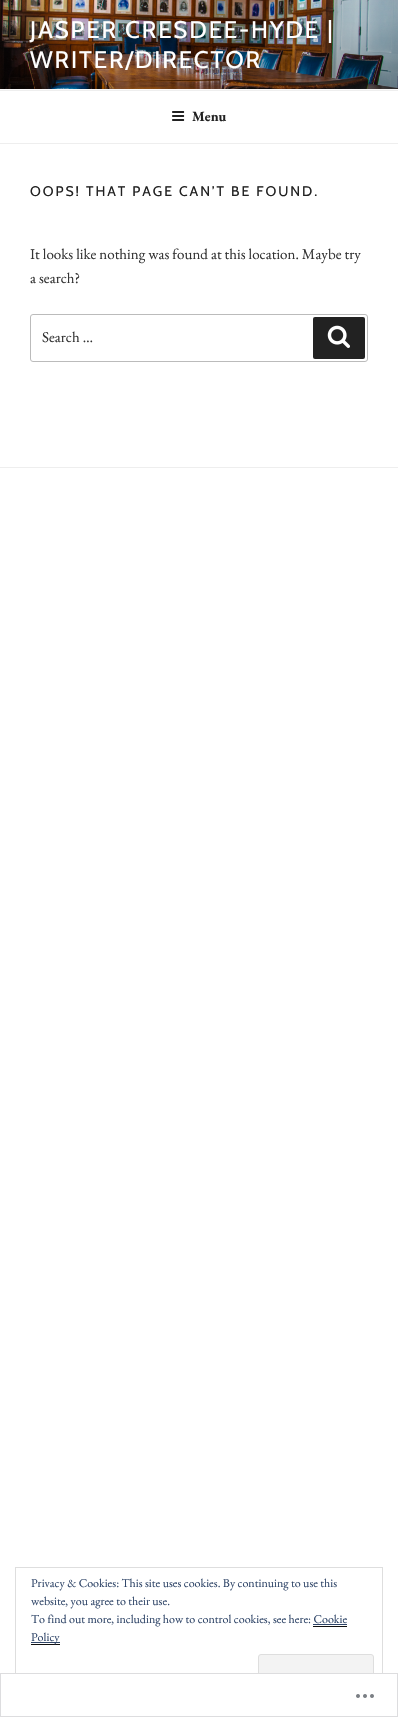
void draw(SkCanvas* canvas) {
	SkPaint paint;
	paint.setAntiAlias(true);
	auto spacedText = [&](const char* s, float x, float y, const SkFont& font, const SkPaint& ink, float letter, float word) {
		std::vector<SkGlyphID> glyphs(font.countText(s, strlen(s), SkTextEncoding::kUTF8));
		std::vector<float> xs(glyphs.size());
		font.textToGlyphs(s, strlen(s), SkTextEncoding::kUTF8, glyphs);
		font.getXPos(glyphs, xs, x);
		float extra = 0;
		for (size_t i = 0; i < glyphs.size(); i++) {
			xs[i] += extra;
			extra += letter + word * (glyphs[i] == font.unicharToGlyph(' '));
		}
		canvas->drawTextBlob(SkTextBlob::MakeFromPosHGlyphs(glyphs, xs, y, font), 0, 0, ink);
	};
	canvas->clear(0xffffffff);
	paint.setColor(0xfffafafa);
	canvas->drawRect(SkRect::MakeXYWH(0, 89, 398, 1), paint);
	canvas->drawImageRect(SkImages::DeferredFromEncodedData(SkData::MakeFromFileName("img1.png")), SkRect::MakeXYWH(0, 0, 398, 89), SkSamplingOptions());
	SkFont f1(fontMgr->matchFamilyStyle("Cabin", SkFontStyle::Normal()), 24);
	f1.setSubpixel(true);
	paint.setColor(0xffffffff);
	spacedText("JASPER CRESDEE-HYDE |", 30, 38, f1, paint, 1.9, 0);
	spacedText("WRITER/DIRECTOR", 30, 68, f1, paint, 1.9, 0);
	paint.setColor(0xffeeeeee);
	canvas->drawRect(SkRect::MakeXYWH(0, 90, 398, 1), paint);
	canvas->drawRect(SkRect::MakeXYWH(0, 143, 398, 1), paint);
	canvas->drawImageRect(SkImages::DeferredFromEncodedData(SkData::MakeFromFileName("img2.png")), SkRect::MakeXYWH(172, 111, 13, 10), SkSamplingOptions());
	SkFont f2(fontMgr->matchFamilyStyle("EB Garamond", SkFontStyle::Bold()), 14);
	f2.setSubpixel(true);
	paint.setColor(0xff222222);
	canvas->drawString("Menu", 192, 121, f2, paint);
	SkFont f3(fontMgr->matchFamilyStyle("Cabin", SkFontStyle::Normal()), 14);
	f3.setSubpixel(true);
	spacedText("OOPS! THAT PAGE CAN’T BE FOUND.", 30, 196, f3, paint, 1.95, 0);
	SkFont f4(fontMgr->matchFamilyStyle("EB Garamond", SkFontStyle::Normal()), 15);
	f4.setSubpixel(true);
	paint.setColor(0xff333333);
	canvas->drawString("It looks like nothing was found at this location. Maybe try", 30, 259, f4, paint);
	canvas->drawString("a search?", 30, 283, f4, paint);
	paint.setStroke(true);
	paint.setStrokeWidth(1);
	paint.setColor(0xffbbbbbb);
	canvas->drawRoundRect(SkRect::MakeXYWH(30.5, 314.5, 337, 47), 2.5, 2.5, paint);
	paint.setStroke(false);
	paint.setColor(0xff333333);
	canvas->drawString("Search …", 42, 342, f4, paint);
	paint.setColor(0xff222222);
	canvas->drawRoundRect(SkRect::MakeXYWH(313, 317, 52, 42), 2, 2, paint);
	canvas->drawImageRect(SkImages::DeferredFromEncodedData(SkData::MakeFromFileName("img3.png")), SkRect::MakeXYWH(327, 325, 23, 23), SkSamplingOptions());
	paint.setColor(0xffeeeeee);
	canvas->drawRect(SkRect::MakeXYWH(0, 467, 398, 1), paint);
	paint.setStroke(true);
	paint.setColor(0xffdedede);
	canvas->drawRect(SkRect::MakeXYWH(15.5, 1567.5, 367, 134), paint);
	SkFont f5(fontMgr->matchFamilyStyle("EB Garamond", SkFontStyle::Normal()), 12);
	f5.setSubpixel(true);
	paint.setStroke(false);
	paint.setColor(0xff2e4467);
	canvas->drawString("Privacy & Cookies: This site uses cookies. By continuing to use this", 31, 1587, f5, paint);
	canvas->drawString("website, you agree to their use.", 31, 1605, f5, paint);
	canvas->drawString("To find out more, including how to control cookies, see here: Cookie", 31, 1623, f5, paint);
	paint.setColor(0xff0f0f0f);
	canvas->drawRect(SkRect::MakeXYWH(31, 1644, 29, 1), paint);
	paint.setColor(0xff2e4467);
	canvas->drawRect(SkRect::MakeXYWH(31, 1642, 29, 1), paint);
	canvas->drawString("Policy", 31, 1641, f5, paint);
	paint.setColor(0xff0f0f0f);
	canvas->drawRect(SkRect::MakeXYWH(313, 1626, 34, 1), paint);
	paint.setColor(0xff2e4467);
	canvas->drawRect(SkRect::MakeXYWH(313, 1624, 34, 1), paint);
	paint.setColor(0xfff3f3f3);
	canvas->drawRoundRect(SkRect::MakeXYWH(258.5, 1654.5, 115, 38), 2.5, 2.5, paint);
	paint.setStroke(true);
	paint.setColor(0xffdedede);
	canvas->drawRoundRect(SkRect::MakeXYWH(258.5, 1654.5, 115, 38), 2.5, 2.5, paint);
	paint.setStroke(false);
	paint.setColor(0xfaffffff);
	canvas->drawRect(SkRect::MakeXYWH(15, 1673, 368, 29), paint);
	paint.setStroke(true);
	paint.setColor(0xfadcdcde);
	canvas->drawRect(SkRect::MakeXYWH(0.5, 1673.5, 397, 43), paint);
	canvas->drawImageRect(SkImages::DeferredFromEncodedData(SkData::MakeFromFileName("img4.png")), SkRect::MakeXYWH(356, 1694, 18, 4), SkSamplingOptions());
}
